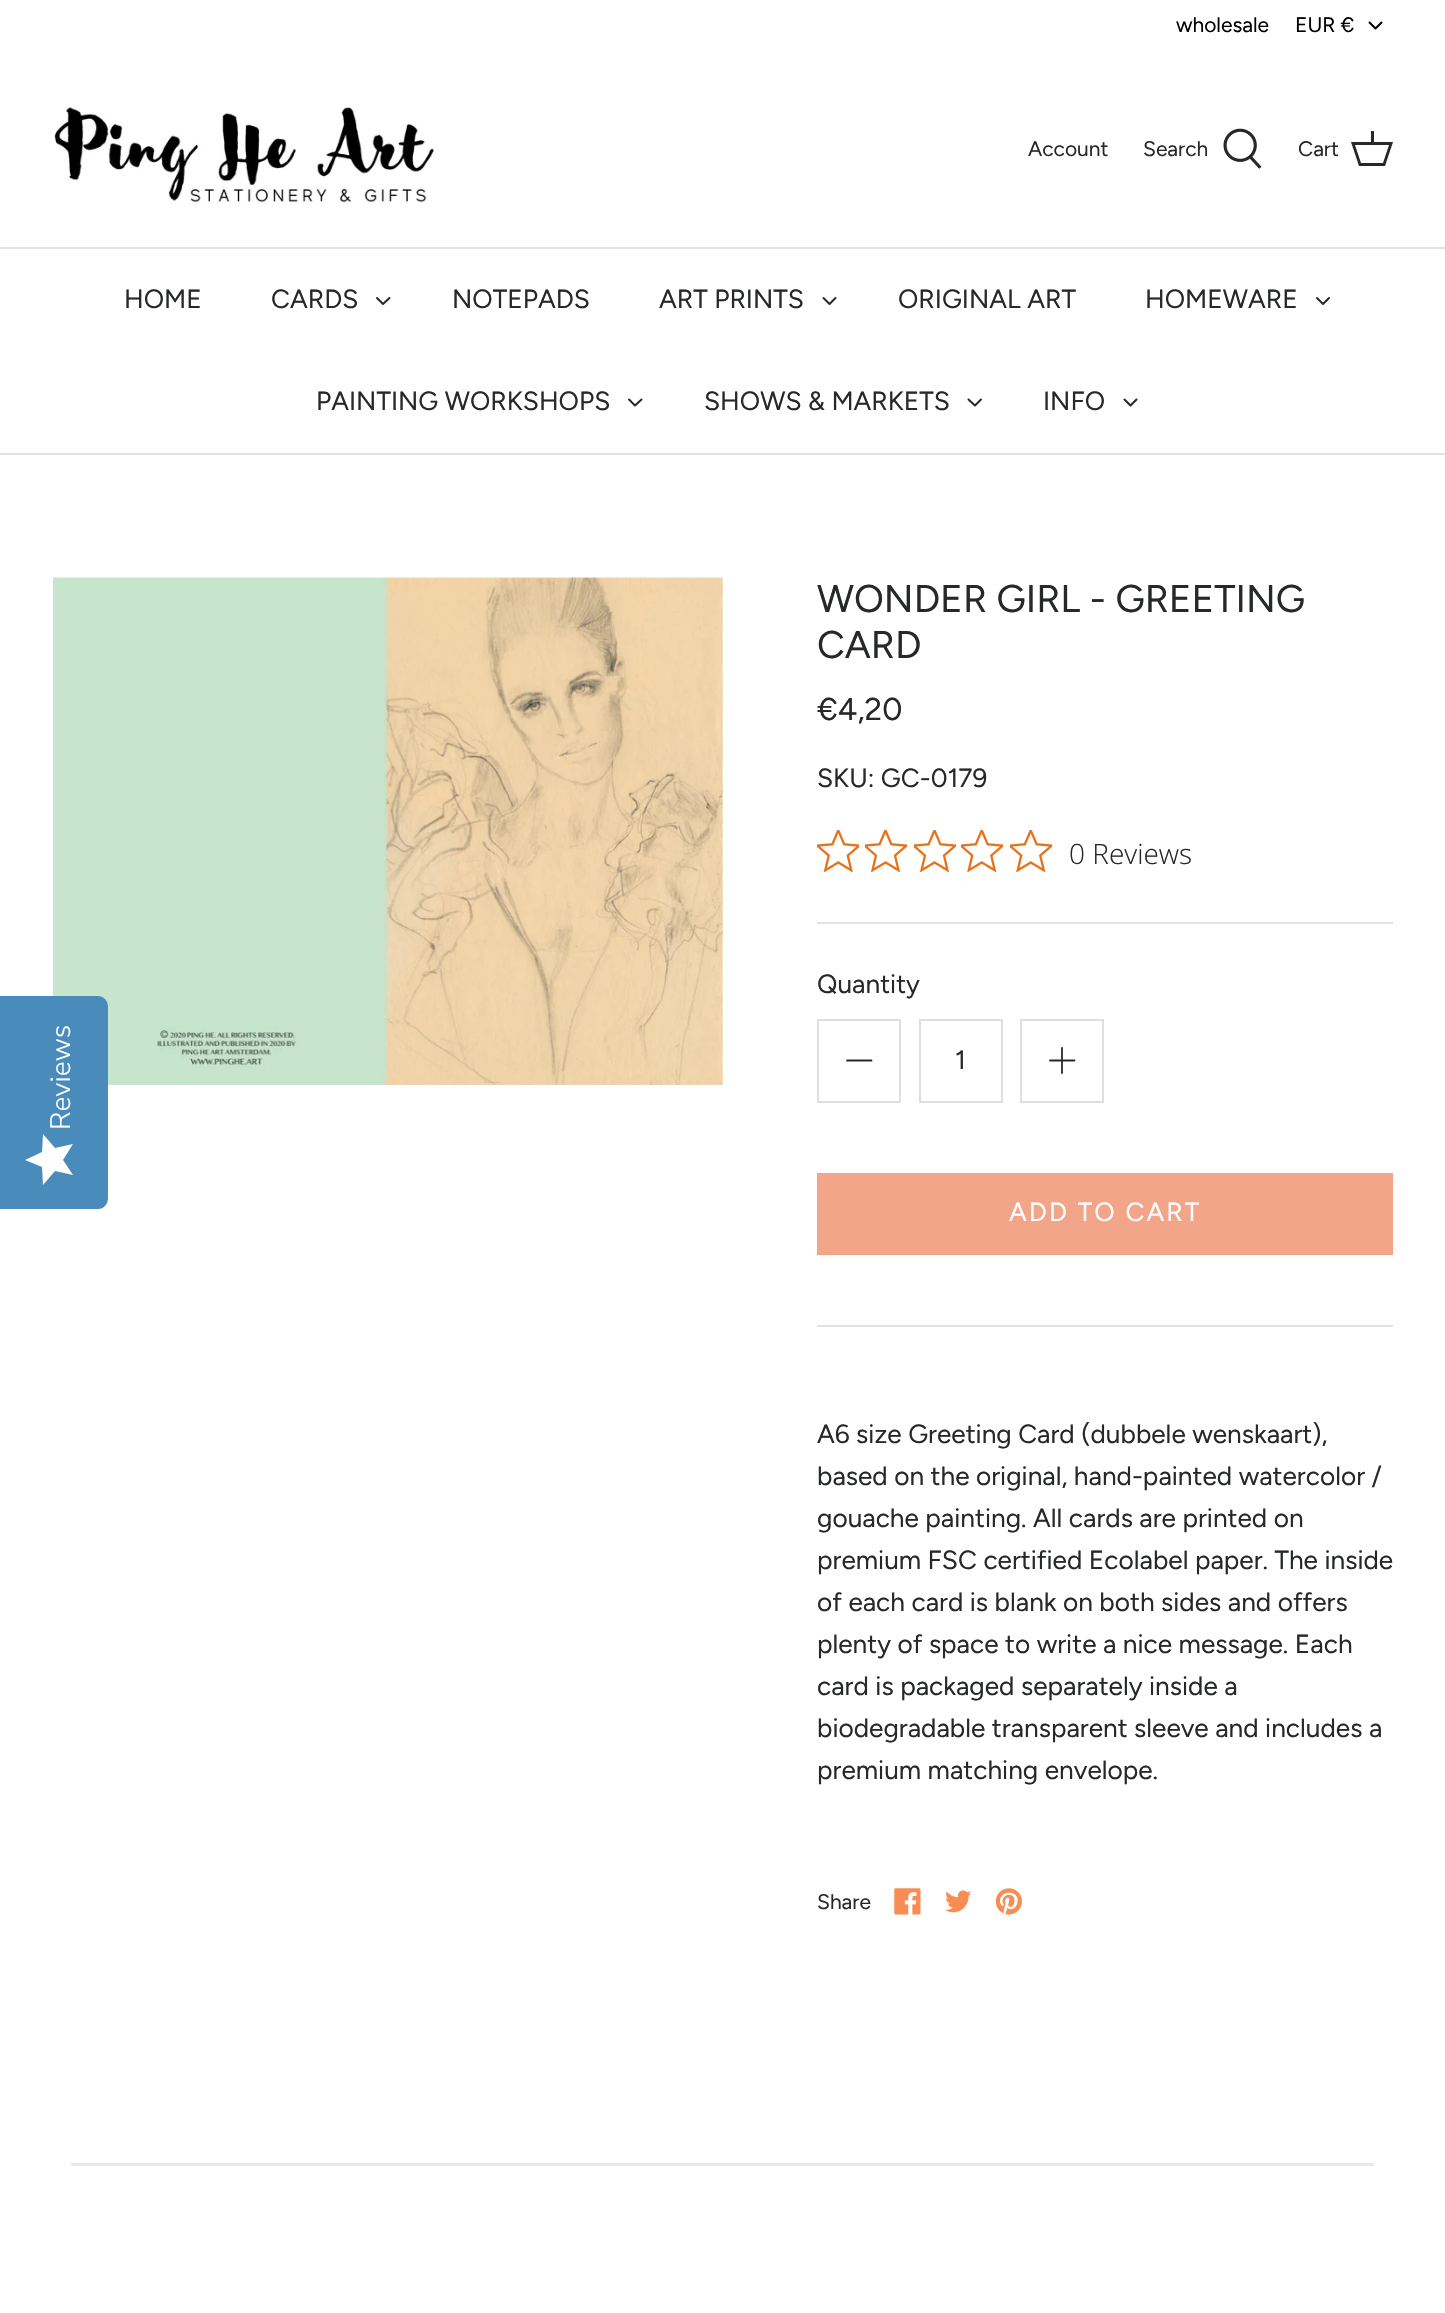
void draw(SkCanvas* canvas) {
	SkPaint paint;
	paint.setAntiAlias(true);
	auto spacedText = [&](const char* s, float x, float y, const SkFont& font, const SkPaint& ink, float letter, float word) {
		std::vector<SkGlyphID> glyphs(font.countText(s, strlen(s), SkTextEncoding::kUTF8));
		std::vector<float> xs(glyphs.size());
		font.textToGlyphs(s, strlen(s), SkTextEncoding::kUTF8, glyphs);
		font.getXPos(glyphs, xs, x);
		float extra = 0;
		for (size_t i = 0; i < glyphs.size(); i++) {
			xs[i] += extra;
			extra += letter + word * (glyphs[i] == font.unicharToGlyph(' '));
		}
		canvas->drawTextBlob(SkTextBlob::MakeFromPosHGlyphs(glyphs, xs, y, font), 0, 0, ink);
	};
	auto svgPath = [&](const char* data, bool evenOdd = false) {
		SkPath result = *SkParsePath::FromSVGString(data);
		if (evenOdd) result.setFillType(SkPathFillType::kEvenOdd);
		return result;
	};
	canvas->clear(0xffffffff);
	SkFont f1(fontMgr->matchFamilyStyle("Figtree", SkFontStyle::Normal()), 21);
	f1.setSubpixel(true);
	paint.setColor(0xff000000);
	canvas->drawString("wholesale", 1176, 32, f1, paint);
	canvas->drawString("EUR €", 1295, 32, f1, paint);
	paint.setStroke(true);
	paint.setStrokeWidth(2);
	paint.setStrokeCap(SkPaint::kRound_Cap);
	paint.setStrokeJoin(SkPaint::kRound_Join);
	canvas->drawPath(svgPath("M1369.5 22.5L1375.5 28.5L1381.5 22.5"), paint);
	paint.setStroke(false);
	paint.setColor(0xffe2e2e2);
	canvas->drawRect(SkRect::MakeXYWH(0, 247, 1445, 2), paint);
	canvas->drawImageRect(SkImages::DeferredFromEncodedData(SkData::MakeFromFileName("img1.png")), SkRect::MakeXYWH(53, 107, 381, 98), SkSamplingOptions());
	paint.setColor(0xff272929);
	canvas->drawString("Account", 1028, 156, f1, paint);
	canvas->drawString("Search", 1143, 156, f1, paint);
	canvas->drawImageRect(SkImages::DeferredFromEncodedData(SkData::MakeFromFileName("img2.png")), SkRect::MakeXYWH(1223, 128, 39, 41), SkSamplingOptions());
	canvas->drawString("Cart", 1298, 156, f1, paint);
	canvas->drawPath(svgPath("M1371 142V131H1374V142H1393L1385 166H1359L1351 142ZM1355 145L1361 163H1383L1389 145Z"), paint);
	paint.setColor(0xffe2e2e2);
	canvas->drawRect(SkRect::MakeXYWH(0, 453, 1445, 2), paint);
	SkFont f2(fontMgr->matchFamilyStyle("Figtree", SkFontStyle::Normal()), 26.25);
	f2.setSubpixel(true);
	paint.setColor(0xff272929);
	canvas->drawString("HOME", 124, 308, f2, paint);
	canvas->drawString("CARDS", 271, 308, f2, paint);
	paint.setStroke(true);
	canvas->drawPath(svgPath("M377 298L383 304L389.5 298"), paint);
	paint.setStroke(false);
	canvas->drawString("NOTEPADS", 452, 308, f2, paint);
	canvas->drawString("ART PRINTS", 659, 308, f2, paint);
	paint.setStroke(true);
	canvas->drawPath(svgPath("M823.5 298L829.5 304L835.5 298"), paint);
	paint.setStroke(false);
	canvas->drawString("ORIGINAL ART", 898, 308, f2, paint);
	canvas->drawString("HOMEWARE", 1145, 308, f2, paint);
	paint.setStroke(true);
	canvas->drawPath(svgPath("M1317 298L1323 304L1329 298"), paint);
	paint.setStroke(false);
	canvas->drawString("PAINTING WORKSHOPS", 316, 410, f2, paint);
	paint.setStroke(true);
	canvas->drawPath(svgPath("M629 399.5L635 405.5L641.5 399.5"), paint);
	paint.setStroke(false);
	canvas->drawString("SHOWS & MARKETS", 704, 410, f2, paint);
	paint.setStroke(true);
	canvas->drawPath(svgPath("M968.5 399.5L975 405.5L981 399.5"), paint);
	paint.setStroke(false);
	canvas->drawString("INFO", 1043, 410, f2, paint);
	paint.setStroke(true);
	canvas->drawPath(svgPath("M1124.5 399.5L1130.5 405.5L1136.5 399.5"), paint);
	canvas->drawImageRect(SkImages::DeferredFromEncodedData(SkData::MakeFromFileName("img3.png")), SkRect::MakeXYWH(53, 577, 670, 508), SkSamplingOptions());
	paint.setStroke(false);
	paint.setColor(0xff498cbc);
	canvas->drawPath(svgPath("M0 1209V996H98C104 996 108 1001 108 1007V1198C108 1204 104 1209 98 1209Z"), paint);
	SkFont f3(fontMgr->matchFamilyStyle("Nunito Sans", SkFontStyle(300, SkFontStyle::kNormal_Width, SkFontStyle::kUpright_Slant)), 28);
	f3.setSubpixel(true);
	paint.setColor(0xffffffff);
	canvas->save();
	canvas->rotate(-90, 70, 1130);
	canvas->drawString("Reviews", 70, 1130, f3, paint);
	canvas->restore();
	{
		const SkColor colors[] = {0xfffefefe, 0xffeaeaea};
		const float stops[] = {1, 1};
		const SkPoint ends[] = {{25, 1185}, {25, 1134}};
		paint.setShader(SkGradientShader::MakeLinear(ends, colors, stops, 2, SkTileMode::kClamp));
		paint.setAlpha(255);
	}
	canvas->drawPath(svgPath("M63 1160L73 1144L55 1148L43 1134L42 1152L25 1160L42 1167L43 1185L55 1171L73 1175Z"), paint);
	paint.setShader(nullptr);
	paint.setColor(0xffe2e2e2);
	canvas->drawRect(SkRect::MakeXYWH(817, 922, 576, 2), paint);
	SkFont f4(fontMgr->matchFamilyStyle("Figtree", SkFontStyle::Normal()), 38.5);
	f4.setSubpixel(true);
	paint.setColor(0xff272929);
	canvas->drawString("WONDER GIRL - GREETING", 817, 612, f4, paint);
	canvas->drawString("CARD", 817, 658, f4, paint);
	SkFont f5(fontMgr->matchFamilyStyle("Figtree", SkFontStyle::Normal()), 31.5);
	f5.setSubpixel(true);
	canvas->drawString("€4,20", 817, 720, f5, paint);
	canvas->drawString("SKU: GC-0179", 817, 787, f2, paint);
	canvas->drawImageRect(SkImages::DeferredFromEncodedData(SkData::MakeFromFileName("img4.png")), SkRect::MakeXYWH(817, 830, 42, 42), SkSamplingOptions());
	canvas->drawImageRect(SkImages::DeferredFromEncodedData(SkData::MakeFromFileName("img5.png")), SkRect::MakeXYWH(865, 830, 42, 42), SkSamplingOptions());
	canvas->drawImageRect(SkImages::DeferredFromEncodedData(SkData::MakeFromFileName("img5.png")), SkRect::MakeXYWH(914, 830, 42, 42), SkSamplingOptions());
	canvas->drawImageRect(SkImages::DeferredFromEncodedData(SkData::MakeFromFileName("img6.png")), SkRect::MakeXYWH(961, 830, 42, 42), SkSamplingOptions());
	canvas->drawImageRect(SkImages::DeferredFromEncodedData(SkData::MakeFromFileName("img6.png")), SkRect::MakeXYWH(1010, 830, 42, 42), SkSamplingOptions());
	SkFont f6(fontMgr->matchFamilyStyle("Open Sans", SkFontStyle(300, SkFontStyle::kNormal_Width, SkFontStyle::kUpright_Slant)), 28);
	f6.setSubpixel(true);
	canvas->drawString("0 Reviews", 1069, 864, f6, paint);
	paint.setColor(0xffe2e2e2);
	canvas->drawRect(SkRect::MakeXYWH(817, 1325, 576, 2), paint);
	paint.setColor(0xff272929);
	canvas->drawString("Quantity", 817, 993, f2, paint);
	paint.setStroke(true);
	paint.setStrokeCap(SkPaint::kButt_Cap);
	paint.setStrokeJoin(SkPaint::kMiter_Join);
	paint.setColor(0xffdfdfdf);
	canvas->drawRect(SkRect::MakeXYWH(818, 1020, 82, 82), paint);
	paint.setStrokeWidth(1.8);
	paint.setStrokeCap(SkPaint::kRound_Cap);
	paint.setStrokeJoin(SkPaint::kRound_Join);
	paint.setColor(0xff272929);
	canvas->drawPath(svgPath("M847 1060.5H871.5"), paint);
	paint.setStrokeWidth(2);
	paint.setStrokeCap(SkPaint::kButt_Cap);
	paint.setStrokeJoin(SkPaint::kMiter_Join);
	paint.setColor(0xffdfdfdf);
	canvas->drawRect(SkRect::MakeXYWH(920, 1020, 82, 82), paint);
	paint.setStroke(false);
	paint.setColor(0xff272929);
	canvas->drawString("1", 955, 1069, f2, paint);
	paint.setStroke(true);
	paint.setColor(0xffdfdfdf);
	canvas->drawRect(SkRect::MakeXYWH(1021, 1020, 82, 82), paint);
	paint.setStrokeWidth(1.8);
	paint.setStrokeCap(SkPaint::kRound_Cap);
	paint.setStrokeJoin(SkPaint::kRound_Join);
	paint.setColor(0xff272929);
	canvas->drawPath(svgPath("M1062 1048V1073M1050 1060.5H1074.5"), paint);
	paint.setStroke(false);
	paint.setColor(0xfff2a588);
	canvas->drawRect(SkRect::MakeXYWH(817, 1173, 576, 82), paint);
	paint.setColor(0xffffffff);
	spacedText("ADD TO CART", 1009, 1221, f2, paint, 2.1, 0);
	paint.setColor(0xff272929);
	canvas->drawString("A6 size Greeting Card (dubbele wenskaart),", 817, 1443, f2, paint);
	canvas->drawString("based on the original, hand-painted watercolor /", 817, 1485, f2, paint);
	canvas->drawString("gouache painting. All cards are printed on", 817, 1527, f2, paint);
	canvas->drawString("premium FSC certified Ecolabel paper. The inside", 817, 1569, f2, paint);
	canvas->drawString("of each card is blank on both sides and offers", 817, 1611, f2, paint);
	canvas->drawString("plenty of space to write a nice message. Each", 817, 1653, f2, paint);
	canvas->drawString("card is packaged separately inside a", 817, 1695, f2, paint);
	canvas->drawString("biodegradable transparent sleeve and includes a", 817, 1737, f2, paint);
	canvas->drawString("premium matching envelope.", 817, 1779, f2, paint);
	canvas->drawString("Share", 817, 1909, f1, paint);
	canvas->drawImageRect(SkImages::DeferredFromEncodedData(SkData::MakeFromFileName("img7.png")), SkRect::MakeXYWH(894, 1888, 27, 27), SkSamplingOptions());
	canvas->drawImageRect(SkImages::DeferredFromEncodedData(SkData::MakeFromFileName("img8.png")), SkRect::MakeXYWH(945, 1890, 26, 23), SkSamplingOptions());
	canvas->drawImageRect(SkImages::DeferredFromEncodedData(SkData::MakeFromFileName("img9.png")), SkRect::MakeXYWH(996, 1888, 26, 27), SkSamplingOptions());
	paint.setColor(0xffeaeaea);
	canvas->drawRect(SkRect::MakeXYWH(71, 2163, 1303, 3), paint);
}
